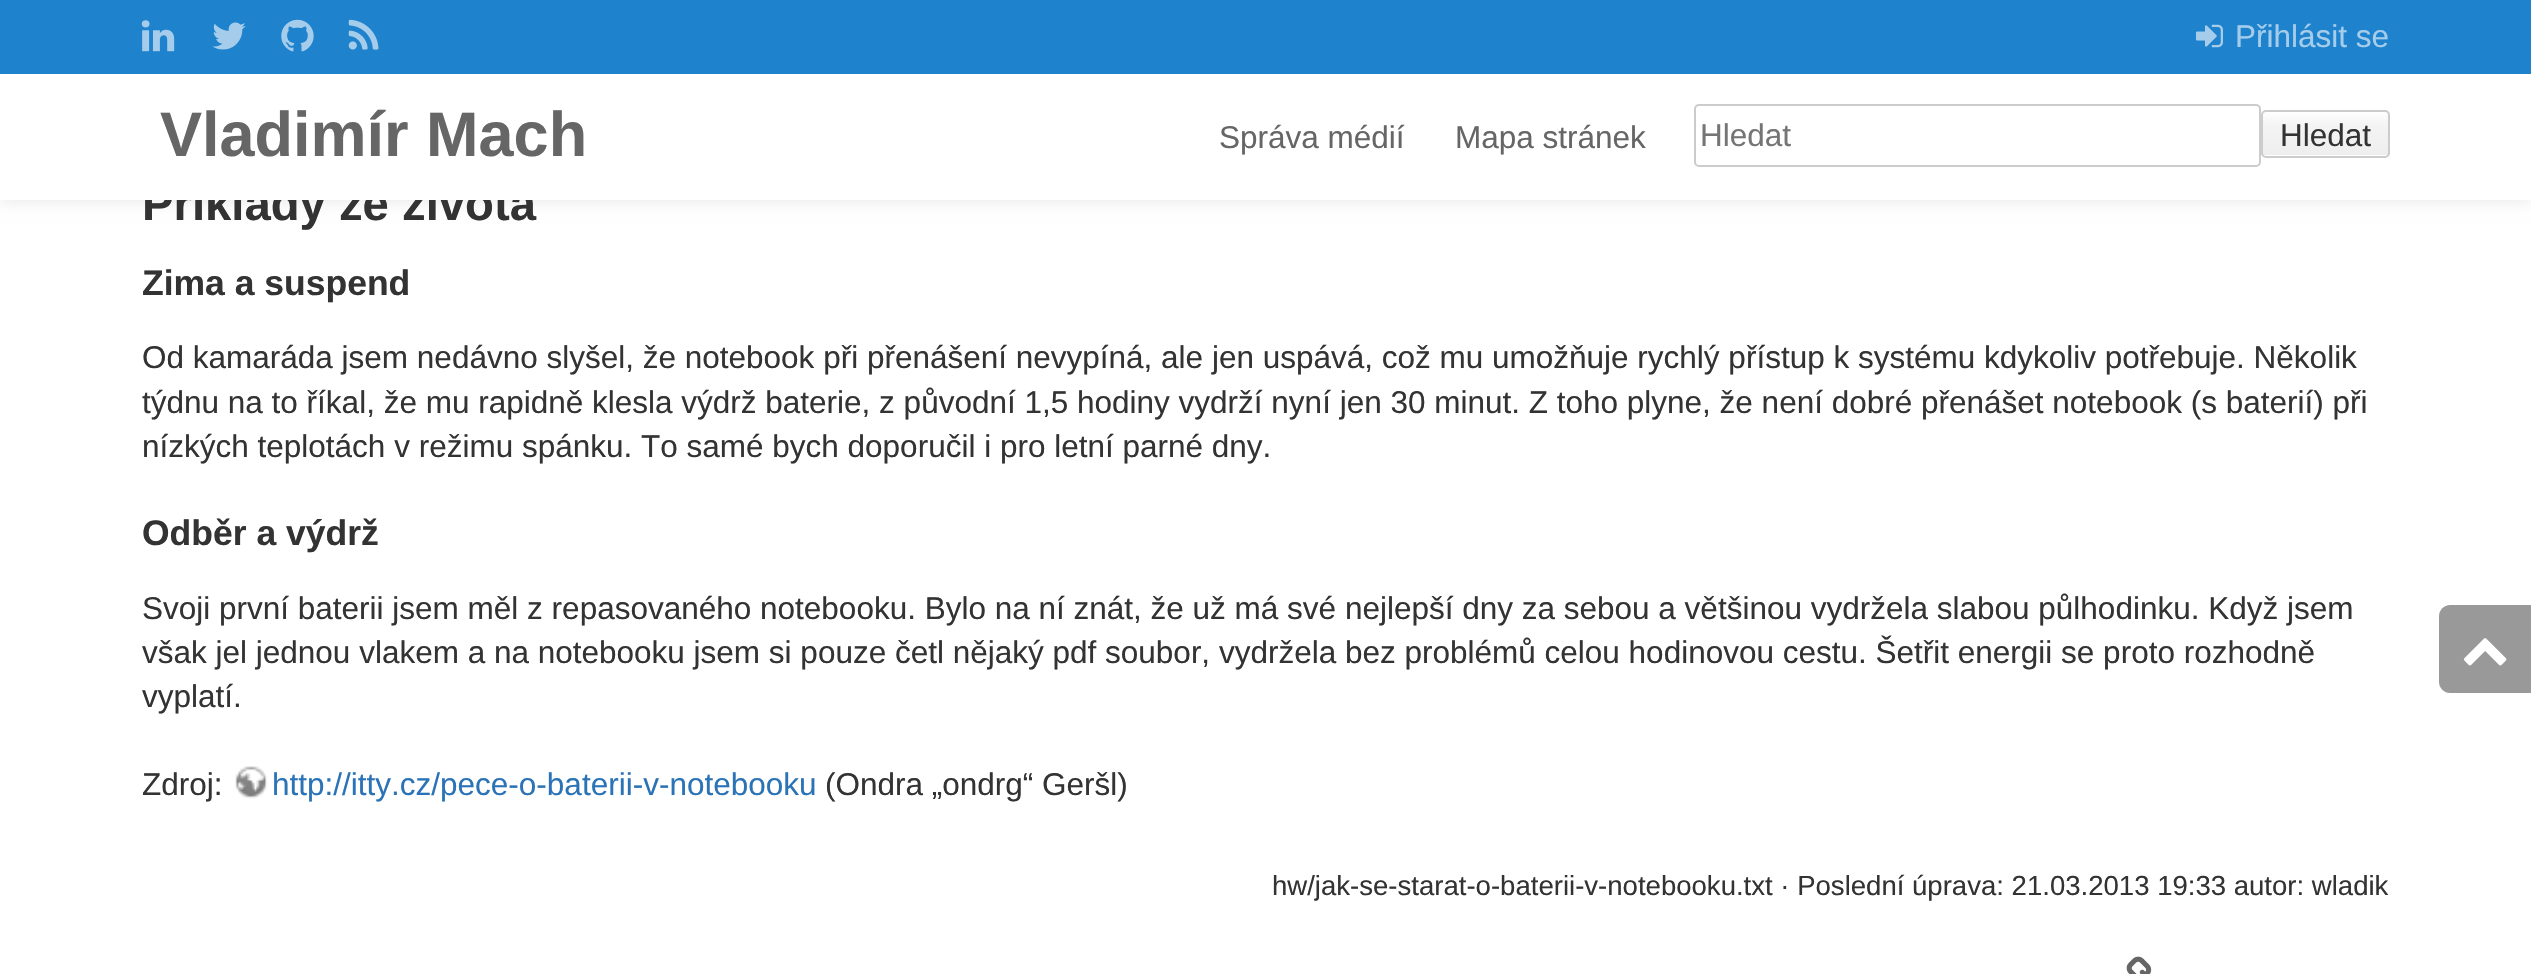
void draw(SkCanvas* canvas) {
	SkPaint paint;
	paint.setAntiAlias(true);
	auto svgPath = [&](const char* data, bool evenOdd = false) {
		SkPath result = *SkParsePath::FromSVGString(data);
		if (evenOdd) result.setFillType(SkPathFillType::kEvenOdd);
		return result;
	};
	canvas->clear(0xffffffff);
	paint.setColor(0x1a000000);
	paint.setMaskFilter(SkMaskFilter::MakeBlur(kNormal_SkBlurStyle, 8));
	canvas->drawRect(SkRect::MakeXYWH(0, 74, 2531, 126), paint);
	paint.setMaskFilter(nullptr);
	paint.setColor(0xff1e82cc);
	canvas->drawRect(SkRect::MakeXYWH(0, 0, 2531, 74), paint);
	canvas->drawImageRect(SkImages::DeferredFromEncodedData(SkData::MakeFromFileName("img1.png")), SkRect::MakeXYWH(141, 20, 34, 32), SkSamplingOptions());
	canvas->drawImageRect(SkImages::DeferredFromEncodedData(SkData::MakeFromFileName("img2.png")), SkRect::MakeXYWH(212, 22, 34, 28), SkSamplingOptions());
	canvas->drawImageRect(SkImages::DeferredFromEncodedData(SkData::MakeFromFileName("img3.png")), SkRect::MakeXYWH(281, 19, 33, 33), SkSamplingOptions());
	canvas->drawImageRect(SkImages::DeferredFromEncodedData(SkData::MakeFromFileName("img4.png")), SkRect::MakeXYWH(348, 19, 31, 31), SkSamplingOptions());
	canvas->drawImageRect(SkImages::DeferredFromEncodedData(SkData::MakeFromFileName("img5.png")), SkRect::MakeXYWH(2196, 24, 27, 24), SkSamplingOptions());
	SkFont f1(fontMgr->matchFamilyStyle("Liberation Sans", SkFontStyle::Normal()), 31.5);
	f1.setSubpixel(true);
	paint.setColor(0xffa5cdeb);
	canvas->drawString("Přihlásit se", 2235, 47, f1, paint);
	SkFont f2(fontMgr->matchFamilyStyle("Liberation Sans", SkFontStyle::Bold()), 47.25);
	f2.setSubpixel(true);
	paint.setColor(0xff333333);
	canvas->drawString("Příklady ze života", 142, 220, f2, paint);
	paint.setColor(0xffffffff);
	canvas->drawRect(SkRect::MakeXYWH(0, 74, 2531, 126), paint);
	SkFont f3(fontMgr->matchFamilyStyle("Liberation Sans", SkFontStyle::Bold()), 63);
	f3.setSubpixel(true);
	paint.setColor(0xff666666);
	canvas->drawString("Vladimír Mach", 160, 156, f3, paint);
	canvas->drawString("Správa médií", 1219, 148, f1, paint);
	canvas->drawString("Mapa stránek", 1455, 148, f1, paint);
	paint.setStroke(true);
	paint.setStrokeWidth(2);
	paint.setColor(0xffcccccc);
	canvas->drawRoundRect(SkRect::MakeXYWH(1695, 105, 565, 61), 4, 4, paint);
	paint.setStroke(false);
	paint.setColor(0xff757575);
	canvas->drawString("Hledat", 1700, 146, f1, paint);
	canvas->drawImageRect(SkImages::DeferredFromEncodedData(SkData::MakeFromFileName("img6.png")), SkRect::MakeXYWH(2261, 112, 128, 45), SkSamplingOptions());
	paint.setStroke(true);
	paint.setColor(0xffcccccc);
	canvas->drawRoundRect(SkRect::MakeXYWH(2262, 111, 127, 46), 4, 4, paint);
	paint.setStroke(false);
	paint.setColor(0xff333333);
	canvas->drawString("Hledat", 2280, 146, f1, paint);
	SkFont f4(fontMgr->matchFamilyStyle("Liberation Sans", SkFontStyle::Bold()), 35.5);
	f4.setSubpixel(true);
	canvas->drawString("Zima a suspend", 142, 295, f4, paint);
	canvas->drawString("Od kamaráda jsem nedávno slyšel, že notebook při přenášení nevypíná, ale jen uspává, což mu umožňuje rychlý přístup k systému kdykoliv potřebuje. Několik", 142, 368, f1, paint);
	canvas->drawString("týdnu na to říkal, že mu rapidně klesla výdrž baterie, z původní 1,5 hodiny vydrží nyní jen 30 minut. Z toho plyne, že není dobré přenášet notebook (s baterií) při", 142, 413, f1, paint);
	canvas->drawString("nízkých teplotách v režimu spánku. To samé bych doporučil i pro letní parné dny.", 142, 457, f1, paint);
	canvas->drawString("Odběr a výdrž", 142, 545, f4, paint);
	canvas->drawString("Svoji první baterii jsem měl z repasovaného notebooku. Bylo na ní znát, že už má své nejlepší dny za sebou a většinou vydržela slabou půlhodinku. Když jsem", 142, 619, f1, paint);
	canvas->drawString("však jel jednou vlakem a na notebooku jsem si pouze četl nějaký pdf soubor, vydržela bez problémů celou hodinovou cestu. Šetřit energii se proto rozhodně", 142, 663, f1, paint);
	canvas->drawString("vyplatí.", 142, 707, f1, paint);
	canvas->drawString("Zdroj:", 142, 795, f1, paint);
	canvas->drawImageRect(SkImages::DeferredFromEncodedData(SkData::MakeFromFileName("img7.png")), SkRect::MakeXYWH(235, 766, 33, 33), SkSamplingOptions());
	paint.setColor(0xff2b73b7);
	canvas->drawString("http://itty.cz/pece-o-baterii-v-notebooku", 272, 795, f1, paint);
	paint.setColor(0xff333333);
	canvas->drawString("(Ondra „ondrg“ Geršl)", 825, 795, f1, paint);
	SkFont f5(fontMgr->matchFamilyStyle("Liberation Sans", SkFontStyle::Normal()), 27.55);
	f5.setSubpixel(true);
	canvas->drawString("hw/jak-se-starat-o-baterii-v-notebooku.txt · Poslední úprava: 21.03.2013 19:33 autor: wladik", 1272, 895, f5, paint);
	canvas->drawImageRect(SkImages::DeferredFromEncodedData(SkData::MakeFromFileName("img8.png")), SkRect::MakeXYWH(2126, 956, 26, 18), SkSamplingOptions());
	paint.setColor(0xff999999);
	canvas->drawPath(svgPath("M2450 605H2531V693H2450C2444 693 2439 688 2439 682V616C2439 610 2444 605 2450 605Z"), paint);
	canvas->drawImageRect(SkImages::DeferredFromEncodedData(SkData::MakeFromFileName("img9.png")), SkRect::MakeXYWH(2463, 638, 44, 28), SkSamplingOptions());
}
